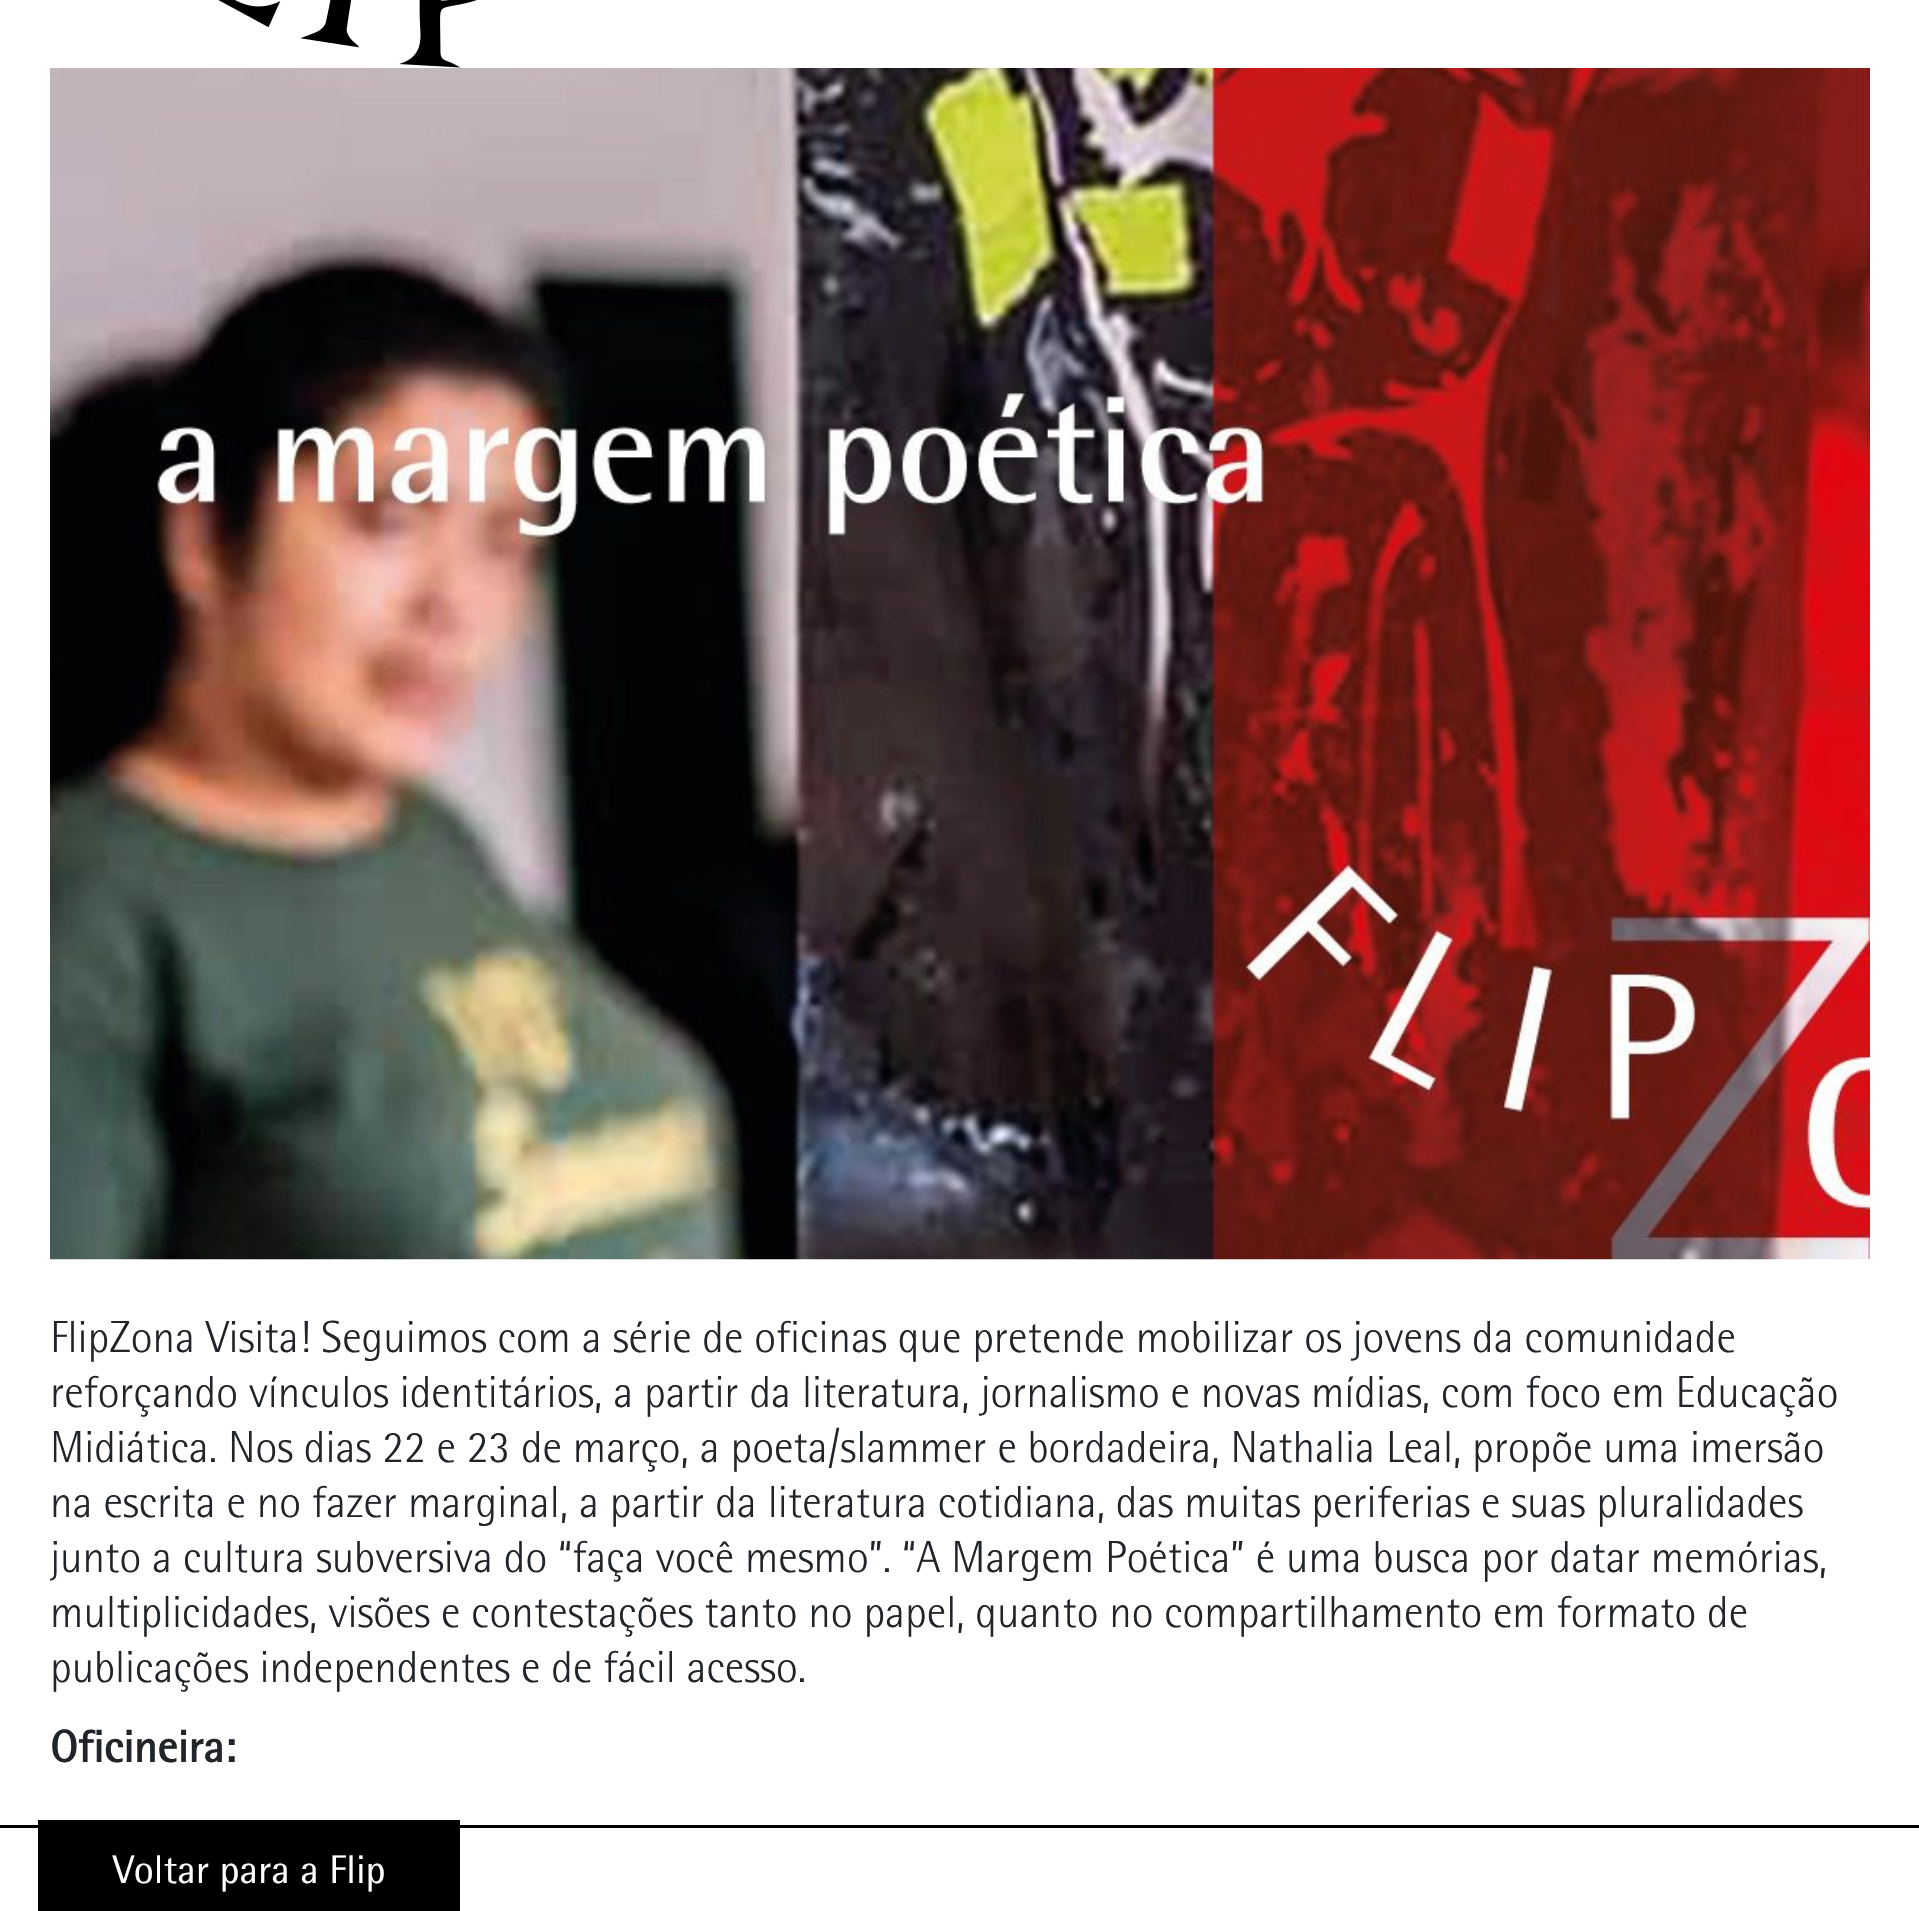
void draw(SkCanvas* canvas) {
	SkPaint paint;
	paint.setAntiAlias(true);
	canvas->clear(0xffffffff);
	canvas->drawImageRect(SkImages::DeferredFromEncodedData(SkData::MakeFromFileName("img1.png")), SkRect::MakeXYWH(218, 0, 259, 68), SkSamplingOptions());
	canvas->drawImageRect(SkImages::DeferredFromEncodedData(SkData::MakeFromFileName("img2.png")), SkRect::MakeXYWH(50, 68, 1820, 1192), SkSamplingOptions());
	SkFont f1(fontMgr->matchFamilyStyle("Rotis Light", SkFontStyle(300, SkFontStyle::kNormal_Width, SkFontStyle::kUpright_Slant)), 45);
	f1.setSubpixel(true);
	paint.setColor(0xff212529);
	canvas->drawString("FlipZona Visita! Seguimos com a série de oficinas que pretende mobilizar os jovens da comunidade", 50, 1352, f1, paint);
	canvas->drawString("reforçando vínculos identitários, a partir da literatura, jornalismo e novas mídias, com foco em Educação", 50, 1407, f1, paint);
	canvas->drawString("Midiática. Nos dias 22 e 23 de março, a poeta/slammer e bordadeira, Nathalia Leal, propõe uma imersão", 50, 1462, f1, paint);
	canvas->drawString("na escrita e no fazer marginal, a partir da literatura cotidiana, das muitas periferias e suas pluralidades", 50, 1517, f1, paint);
	canvas->save();
	canvas->clipRect(SkRect::MakeXYWH(50, 1310, 1820, 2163));
	canvas->drawString("junto a cultura subversiva do “faça você mesmo”. “A Margem Poética” é uma busca por datar memórias,", 50, 1572, f1, paint);
	canvas->restore();
	canvas->drawString("multiplicidades, visões e contestações tanto no papel, quanto no compartilhamento em formato de", 50, 1627, f1, paint);
	canvas->drawString("publicações independentes e de fácil acesso.", 50, 1682, f1, paint);
	SkFont f2(fontMgr->matchFamilyStyle("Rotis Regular", SkFontStyle::Bold()), 45);
	f2.setSubpixel(true);
	canvas->drawString("Oficineira:", 50, 1762, f2, paint);
	paint.setColor(0xff000000);
	canvas->drawRect(SkRect::MakeXYWH(0, 1825, 1919, 3), paint);
	canvas->drawRect(SkRect::MakeXYWH(38, 1820, 422, 91), paint);
	SkFont f3(fontMgr->matchFamilyStyle("Rotis Regular", SkFontStyle::Normal()), 40);
	f3.setSubpixel(true);
	paint.setColor(0xffffffff);
	canvas->drawString("Voltar para a Flip", 113, 1883, f3, paint);
}
